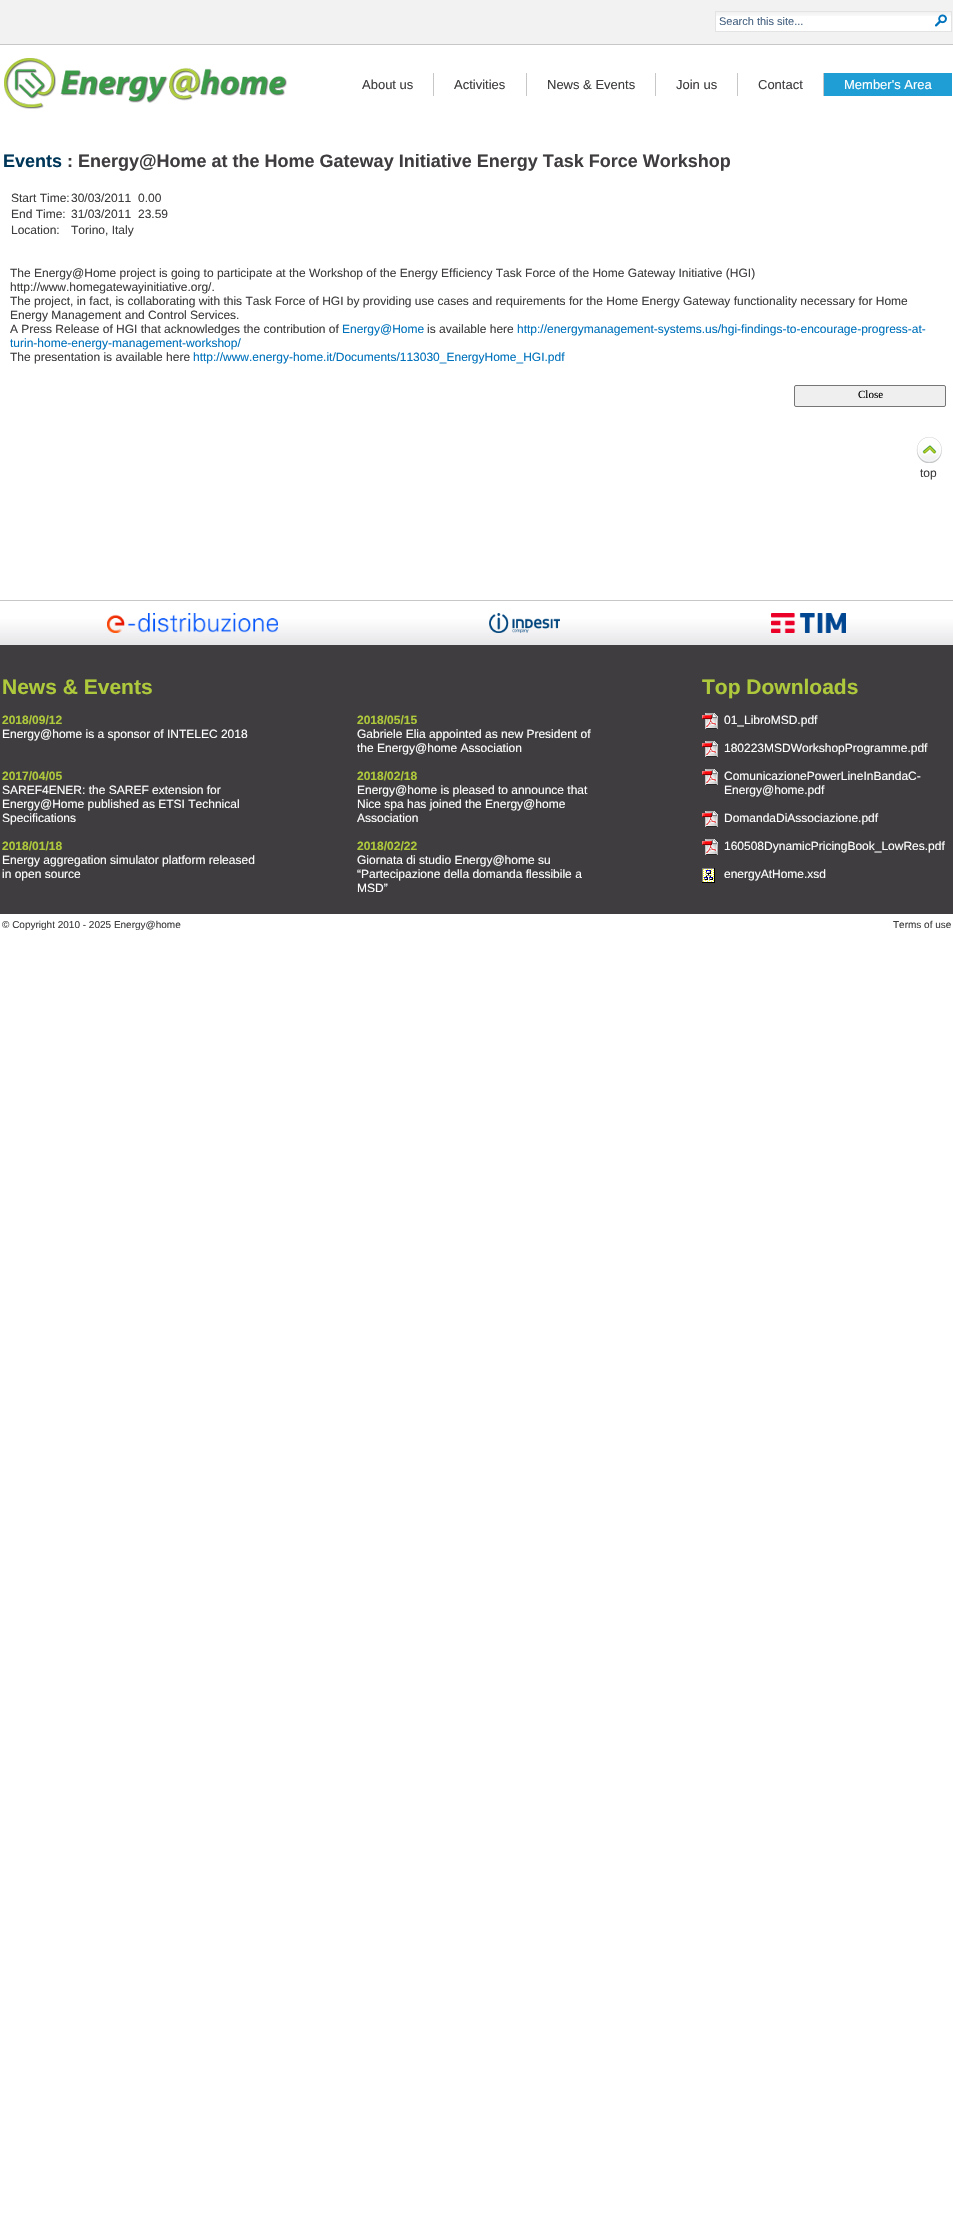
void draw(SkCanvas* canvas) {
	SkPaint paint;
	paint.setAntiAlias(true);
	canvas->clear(0xffffffff);
	paint.setColor(0xfff2f2f2);
	canvas->drawRect(SkRect::MakeXYWH(0, 0, 953, 44), paint);
	paint.setColor(0xffc7c7c7);
	canvas->drawRect(SkRect::MakeXYWH(0, 44, 953, 1), paint);
	paint.setColor(0xffffffff);
	canvas->drawRect(SkRect::MakeXYWH(716, 13, 235, 18), paint);
	canvas->drawImageRect(SkImages::DeferredFromEncodedData(SkData::MakeFromFileName("img1.png")), SkRect::MakeXYWH(716, 12, 216, 4), SkSamplingOptions());
	paint.setColor(0xffe3e3e3);
	canvas->drawRect(SkRect::MakeXYWH(715, 11, 237, 1), paint);
	canvas->drawRect(SkRect::MakeXYWH(715, 31, 217, 1), paint);
	canvas->drawRect(SkRect::MakeXYWH(715, 11, 1, 21), paint);
	SkFont f1(fontMgr->matchFamilyStyle("Liberation Sans", SkFontStyle::Normal()), 11);
	f1.setSubpixel(true);
	paint.setColor(0xff476382);
	canvas->drawString("Search this site...", 719, 25, f1, paint);
	canvas->drawImageRect(SkImages::DeferredFromEncodedData(SkData::MakeFromFileName("img2.png")), SkRect::MakeXYWH(932, 12, 19, 4), SkSamplingOptions());
	paint.setColor(0xffe3e3e3);
	canvas->drawRect(SkRect::MakeXYWH(951, 11, 1, 21), paint);
	canvas->drawRect(SkRect::MakeXYWH(932, 31, 20, 1), paint);
	canvas->drawImageRect(SkImages::DeferredFromEncodedData(SkData::MakeFromFileName("img3.png")), SkRect::MakeXYWH(935, 14, 12, 13), SkSamplingOptions());
	canvas->drawImageRect(SkImages::DeferredFromEncodedData(SkData::MakeFromFileName("img4.png")), SkRect::MakeXYWH(4, 58, 283, 51), SkSamplingOptions());
	paint.setColor(0xffc7c7c7);
	canvas->drawRect(SkRect::MakeXYWH(433, 73, 1, 23), paint);
	SkFont f2(fontMgr->matchFamilyStyle("Liberation Sans", SkFontStyle::Normal()), 13);
	f2.setSubpixel(true);
	paint.setColor(0xff3f3d3f);
	canvas->drawString("About us", 362, 89, f2, paint);
	paint.setColor(0xffc7c7c7);
	canvas->drawRect(SkRect::MakeXYWH(526, 73, 1, 23), paint);
	paint.setColor(0xff3f3d3f);
	canvas->drawString("Activities", 454, 89, f2, paint);
	paint.setColor(0xffc7c7c7);
	canvas->drawRect(SkRect::MakeXYWH(655, 73, 1, 23), paint);
	paint.setColor(0xff3f3d3f);
	canvas->drawString("News & Events", 547, 89, f2, paint);
	paint.setColor(0xffc7c7c7);
	canvas->drawRect(SkRect::MakeXYWH(737, 73, 1, 23), paint);
	paint.setColor(0xff3f3d3f);
	canvas->drawString("Join us", 676, 89, f2, paint);
	paint.setColor(0xffc7c7c7);
	canvas->drawRect(SkRect::MakeXYWH(823, 73, 1, 23), paint);
	paint.setColor(0xff3f3d3f);
	canvas->drawString("Contact", 758, 89, f2, paint);
	paint.setColor(0xff1f9ed5);
	canvas->drawRect(SkRect::MakeXYWH(824, 73, 128, 23), paint);
	paint.setColor(0xffffffff);
	canvas->drawString("Member's Area", 844, 89, f2, paint);
	SkFont f3(fontMgr->matchFamilyStyle("Liberation Sans", SkFontStyle::Bold()), 18);
	f3.setSubpixel(true);
	paint.setColor(0xff003759);
	canvas->drawString("Events", 3, 167, f3, paint);
	paint.setColor(0xff3f3d3f);
	canvas->drawString(": Energy@Home at the Home Gateway Initiative Energy Task Force Workshop", 67, 167, f3, paint);
	SkFont f4(fontMgr->matchFamilyStyle("Liberation Sans", SkFontStyle::Normal()), 12);
	f4.setSubpixel(true);
	canvas->drawString("Start Time:", 11, 202, f4, paint);
	canvas->drawString("30/03/2011", 71, 202, f4, paint);
	canvas->drawString("0.00", 138, 202, f4, paint);
	canvas->drawString("End Time:", 11, 218, f4, paint);
	canvas->drawString("31/03/2011", 71, 218, f4, paint);
	canvas->drawString("23.59", 138, 218, f4, paint);
	canvas->drawString("Location:", 11, 234, f4, paint);
	canvas->drawString("Torino, Italy", 71, 234, f4, paint);
	canvas->drawString("The Energy@Home project is going to participate at the Workshop of the Energy Efficiency Task Force of the Home Gateway Initiative (HGI)", 10, 277, f4, paint);
	canvas->drawString("http://www.homegatewayinitiative.org/.", 10, 291, f4, paint);
	canvas->drawString("The project, in fact, is collaborating with this Task Force of HGI by providing use cases and requirements for the Home Energy Gateway functionality necessary for Home", 10, 305, f4, paint);
	canvas->drawString("Energy Management and Control Services.", 10, 319, f4, paint);
	canvas->drawString("A Press Release of HGI that acknowledges the contribution of", 10, 333, f4, paint);
	paint.setColor(0xff0072bc);
	canvas->drawString("Energy@Home", 342, 333, f4, paint);
	paint.setColor(0xff3f3d3f);
	canvas->drawString("is available here", 427, 333, f4, paint);
	paint.setColor(0xff0072bc);
	canvas->drawString("http://energymanagement-systems.us/hgi-findings-to-encourage-progress-at-", 517, 333, f4, paint);
	canvas->drawString("turin-home-energy-management-workshop/", 10, 347, f4, paint);
	paint.setColor(0xff3f3d3f);
	canvas->drawString("The presentation is available here", 10, 361, f4, paint);
	paint.setColor(0xff0072bc);
	canvas->drawString("http://www.energy-home.it/Documents/113030_EnergyHome_HGI.pdf", 193, 361, f4, paint);
	paint.setColor(0xffefefef);
	canvas->drawRoundRect(SkRect::MakeXYWH(794.5, 385.5, 151, 21), 1.5, 1.5, paint);
	paint.setStroke(true);
	paint.setStrokeWidth(1);
	paint.setColor(0xff767676);
	canvas->drawRoundRect(SkRect::MakeXYWH(794.5, 385.5, 151, 21), 1.5, 1.5, paint);
	SkFont f5(fontMgr->matchFamilyStyle("Liberation Serif", SkFontStyle::Normal()), 11);
	f5.setSubpixel(true);
	paint.setStroke(false);
	paint.setColor(0xff000000);
	canvas->drawString("Close", 858, 398, f5, paint);
	canvas->drawImageRect(SkImages::DeferredFromEncodedData(SkData::MakeFromFileName("img5.png")), SkRect::MakeXYWH(916, 437, 26, 26), SkSamplingOptions());
	paint.setColor(0xff3f3d3f);
	canvas->drawString("top", 920, 477, f4, paint);
	canvas->drawRect(SkRect::MakeXYWH(0, 645, 953, 269), paint);
	canvas->drawImageRect(SkImages::DeferredFromEncodedData(SkData::MakeFromFileName("img6.png")), SkRect::MakeXYWH(0, 601, 953, 44), SkSamplingOptions());
	paint.setColor(0xffc7c7c7);
	canvas->drawRect(SkRect::MakeXYWH(0, 600, 953, 1), paint);
	canvas->drawImageRect(SkImages::DeferredFromEncodedData(SkData::MakeFromFileName("img7.png")), SkRect::MakeXYWH(107, 613, 171, 20), SkSamplingOptions());
	canvas->drawImageRect(SkImages::DeferredFromEncodedData(SkData::MakeFromFileName("img8.png")), SkRect::MakeXYWH(489, 613, 71, 20), SkSamplingOptions());
	canvas->drawImageRect(SkImages::DeferredFromEncodedData(SkData::MakeFromFileName("img9.png")), SkRect::MakeXYWH(771, 613, 75, 20), SkSamplingOptions());
	SkFont f6(fontMgr->matchFamilyStyle("Liberation Sans", SkFontStyle::Bold()), 21);
	f6.setSubpixel(true);
	paint.setColor(0xffaec93b);
	canvas->drawString("News & Events", 2, 694, f6, paint);
	SkFont f7(fontMgr->matchFamilyStyle("Liberation Sans", SkFontStyle::Bold()), 12);
	f7.setSubpixel(true);
	canvas->drawString("2018/09/12", 2, 724, f7, paint);
	paint.setColor(0xffffffff);
	canvas->drawString("Energy@home is a sponsor of INTELEC 2018", 2, 738, f4, paint);
	paint.setColor(0xffaec93b);
	canvas->drawString("2018/05/15", 357, 724, f7, paint);
	paint.setColor(0xffffffff);
	canvas->drawString("Gabriele Elia appointed as new President of", 357, 738, f4, paint);
	canvas->drawString("the Energy@home Association", 357, 752, f4, paint);
	paint.setColor(0xffaec93b);
	canvas->drawString("2017/04/05", 2, 780, f7, paint);
	paint.setColor(0xffffffff);
	canvas->drawString("SAREF4ENER: the SAREF extension for", 2, 794, f4, paint);
	canvas->drawString("Energy@Home published as ETSI Technical", 2, 808, f4, paint);
	canvas->drawString("Specifications", 2, 822, f4, paint);
	paint.setColor(0xffaec93b);
	canvas->drawString("2018/02/18", 357, 780, f7, paint);
	paint.setColor(0xffffffff);
	canvas->drawString("Energy@home is pleased to announce that", 357, 794, f4, paint);
	canvas->drawString("Nice spa has joined the Energy@home", 357, 808, f4, paint);
	canvas->drawString("Association", 357, 822, f4, paint);
	paint.setColor(0xffaec93b);
	canvas->drawString("2018/01/18", 2, 850, f7, paint);
	paint.setColor(0xffffffff);
	canvas->drawString("Energy aggregation simulator platform released", 2, 864, f4, paint);
	canvas->drawString("in open source", 2, 878, f4, paint);
	paint.setColor(0xffaec93b);
	canvas->drawString("2018/02/22", 357, 850, f7, paint);
	paint.setColor(0xffffffff);
	canvas->drawString("Giornata di studio Energy@home su", 357, 864, f4, paint);
	canvas->drawString("“Partecipazione della domanda flessibile a", 357, 878, f4, paint);
	canvas->drawString("MSD”", 357, 892, f4, paint);
	paint.setColor(0xffaec93b);
	canvas->drawString("Top Downloads", 702, 694, f6, paint);
	canvas->drawImageRect(SkImages::DeferredFromEncodedData(SkData::MakeFromFileName("img10.png")), SkRect::MakeXYWH(702, 713, 16, 16), SkSamplingOptions());
	paint.setColor(0xffffffff);
	canvas->drawString("01_LibroMSD.pdf", 724, 724, f4, paint);
	canvas->drawImageRect(SkImages::DeferredFromEncodedData(SkData::MakeFromFileName("img10.png")), SkRect::MakeXYWH(702, 741, 16, 16), SkSamplingOptions());
	canvas->drawString("180223MSDWorkshopProgramme.pdf", 724, 752, f4, paint);
	canvas->drawImageRect(SkImages::DeferredFromEncodedData(SkData::MakeFromFileName("img10.png")), SkRect::MakeXYWH(702, 769, 16, 16), SkSamplingOptions());
	canvas->drawString("ComunicazionePowerLineInBandaC-", 724, 780, f4, paint);
	canvas->drawString("Energy@home.pdf", 724, 794, f4, paint);
	canvas->drawImageRect(SkImages::DeferredFromEncodedData(SkData::MakeFromFileName("img10.png")), SkRect::MakeXYWH(702, 811, 16, 16), SkSamplingOptions());
	canvas->drawString("DomandaDiAssociazione.pdf", 724, 822, f4, paint);
	canvas->drawImageRect(SkImages::DeferredFromEncodedData(SkData::MakeFromFileName("img10.png")), SkRect::MakeXYWH(702, 839, 16, 16), SkSamplingOptions());
	canvas->drawString("160508DynamicPricingBook_LowRes.pdf", 724, 850, f4, paint);
	canvas->drawImageRect(SkImages::DeferredFromEncodedData(SkData::MakeFromFileName("img11.png")), SkRect::MakeXYWH(702, 868, 13, 15), SkSamplingOptions());
	canvas->drawString("energyAtHome.xsd", 724, 878, f4, paint);
	SkFont f8(fontMgr->matchFamilyStyle("Liberation Sans", SkFontStyle::Normal()), 10);
	f8.setSubpixel(true);
	paint.setColor(0xff3f3d3f);
	canvas->drawString("© Copyright 2010 - 2025 Energy@home", 2, 928, f8, paint);
	canvas->drawString("Terms of use", 893, 928, f8, paint);
}
